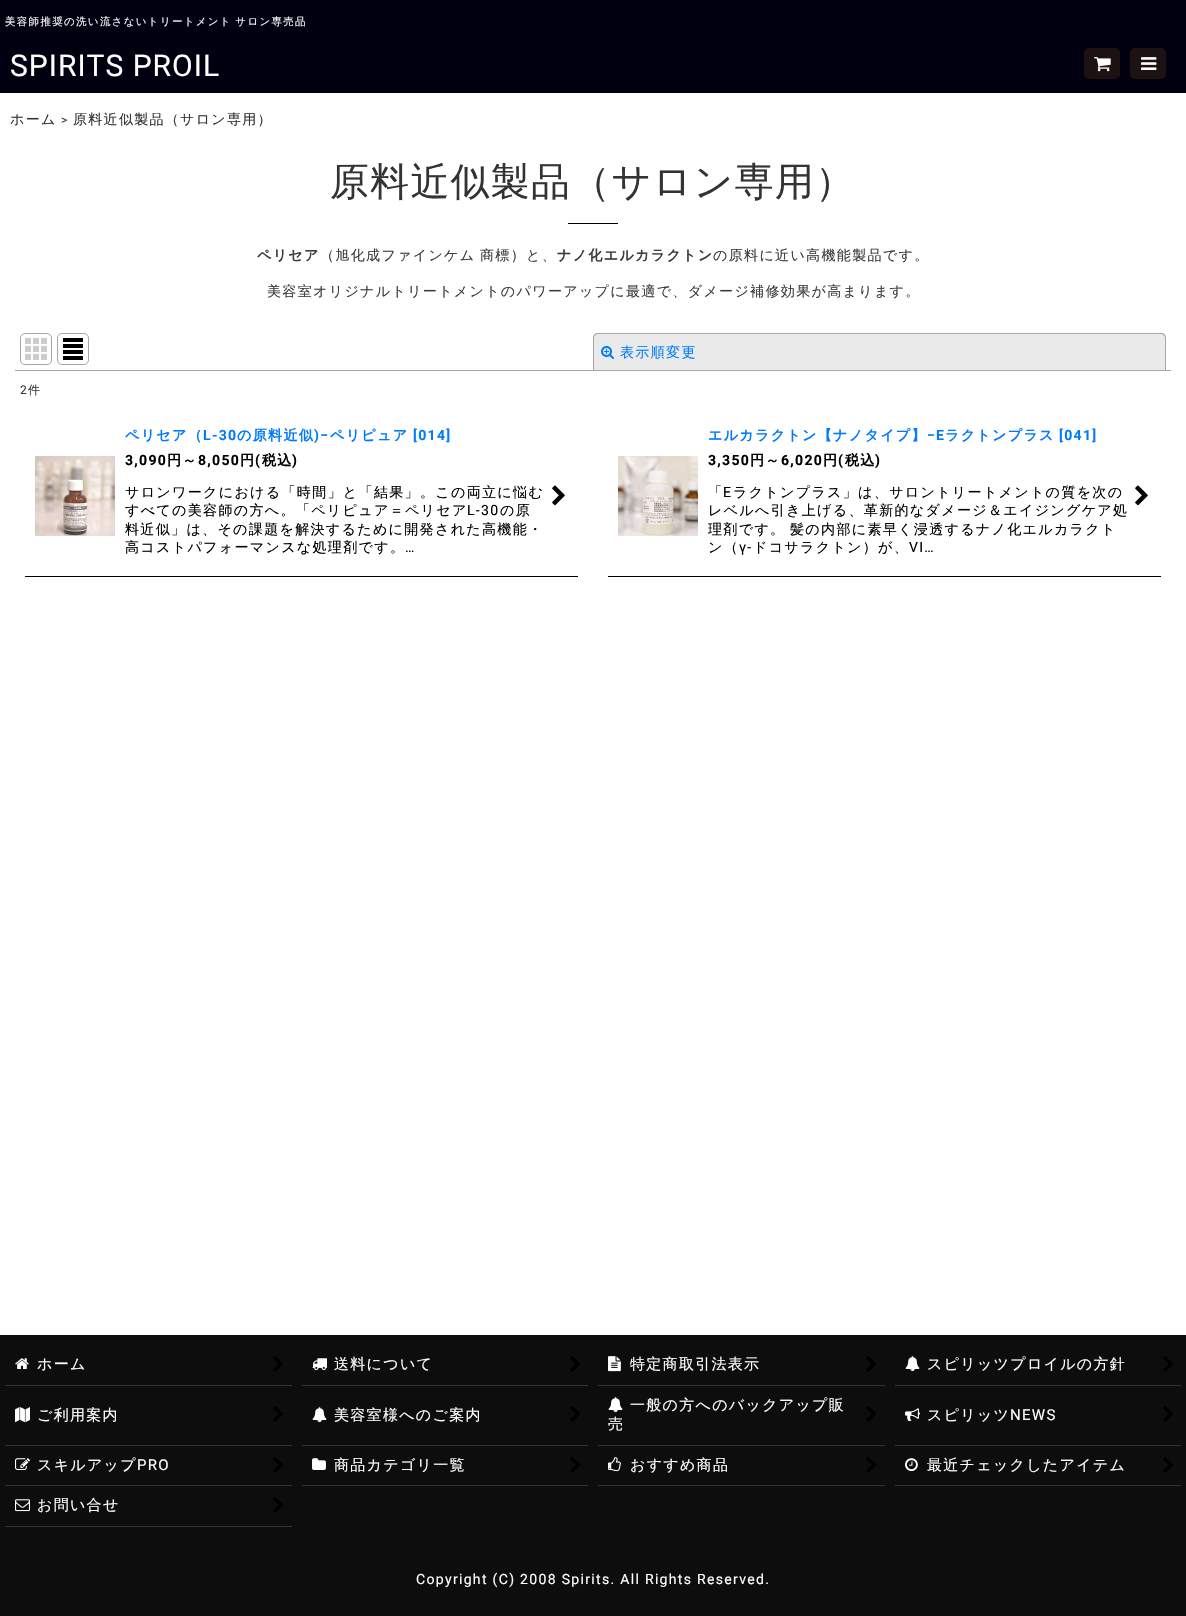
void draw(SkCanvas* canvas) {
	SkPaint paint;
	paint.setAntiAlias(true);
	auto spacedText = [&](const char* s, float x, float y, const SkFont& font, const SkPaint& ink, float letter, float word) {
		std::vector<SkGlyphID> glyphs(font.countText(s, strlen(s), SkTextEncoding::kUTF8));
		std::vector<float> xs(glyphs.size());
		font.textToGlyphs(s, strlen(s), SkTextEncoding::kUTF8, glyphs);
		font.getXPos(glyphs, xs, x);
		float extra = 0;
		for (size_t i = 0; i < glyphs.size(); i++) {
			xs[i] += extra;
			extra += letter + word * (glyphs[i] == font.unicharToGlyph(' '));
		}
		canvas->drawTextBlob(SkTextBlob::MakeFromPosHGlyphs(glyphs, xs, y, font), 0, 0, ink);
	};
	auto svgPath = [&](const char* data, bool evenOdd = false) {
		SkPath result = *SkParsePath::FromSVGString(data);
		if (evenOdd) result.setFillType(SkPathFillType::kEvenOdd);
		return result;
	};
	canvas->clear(0xffffffff);
	paint.setColor(0xff000010);
	canvas->drawRect(SkRect::MakeXYWH(0, 0, 1186, 93), paint);
	SkFont f1(fontMgr->matchFamilyStyle("WenQuanYi Zen Hei", SkFontStyle(500, SkFontStyle::kNormal_Width, SkFontStyle::kUpright_Slant)), 10.5);
	f1.setSubpixel(true);
	paint.setColor(0xffffffff);
	spacedText("美容師推奨の洗い流さないトリートメント サロン専売品", 5, 25, f1, paint, 1.3, -1);
	SkFont f2(fontMgr->matchFamilyStyle("Roboto", SkFontStyle::Normal()), 30);
	f2.setSubpixel(true);
	spacedText("SPIRITS PROIL", 10, 76, f2, paint, 1, 0);
	paint.setColor(0xff1c1212);
	canvas->drawRoundRect(SkRect::MakeXYWH(1084, 48, 36, 31), 5, 5, paint);
	canvas->drawImageRect(SkImages::DeferredFromEncodedData(SkData::MakeFromFileName("img1.png")), SkRect::MakeXYWH(1094, 57, 17, 15), SkSamplingOptions());
	canvas->drawRoundRect(SkRect::MakeXYWH(1130, 48, 36, 31), 5, 5, paint);
	canvas->drawImageRect(SkImages::DeferredFromEncodedData(SkData::MakeFromFileName("img2.png")), SkRect::MakeXYWH(1141, 57, 16, 13), SkSamplingOptions());
	SkFont f3(fontMgr->matchFamilyStyle("WenQuanYi Zen Hei", SkFontStyle(500, SkFontStyle::kNormal_Width, SkFontStyle::kUpright_Slant)), 14);
	f3.setSubpixel(true);
	paint.setColor(0xff333333);
	spacedText("ホーム", 10, 124, f3, paint, 1.3, 0);
	SkFont f4(fontMgr->matchFamilyStyle("Roboto", SkFontStyle::Normal()), 12);
	f4.setSubpixel(true);
	paint.setColor(0xff393c41);
	spacedText(">", 61, 124, f4, paint, 1.3, 0);
	paint.setColor(0xff333333);
	spacedText("原料近似製品（サロン専用）", 73, 124, f3, paint, 1.3, 0);
	SkFont f5(fontMgr->matchFamilyStyle("WenQuanYi Zen Hei", SkFontStyle(500, SkFontStyle::kNormal_Width, SkFontStyle::kUpright_Slant)), 38.9);
	f5.setSubpixel(true);
	spacedText("原料近似製品（サロン専用）", 330, 195, f5, paint, 1.3, 0);
	paint.setColor(0xff000000);
	canvas->drawRect(SkRect::MakeXYWH(568, 223, 50, 1), paint);
	SkFont f6(fontMgr->matchFamilyStyle("WenQuanYi Zen Hei", SkFontStyle::Bold()), 14.05);
	f6.setSubpixel(true);
	paint.setColor(0xff393c41);
	spacedText("ペリセア", 257, 260, f6, paint, 1.3, 0);
	SkFont f7(fontMgr->matchFamilyStyle("WenQuanYi Zen Hei", SkFontStyle(500, SkFontStyle::kNormal_Width, SkFontStyle::kUpright_Slant)), 14.05);
	f7.setSubpixel(true);
	spacedText("（旭化成ファインケム 商標）と、", 320, 260, f7, paint, 1.3, -1);
	spacedText("ナノ化エルカラクトン", 557, 260, f6, paint, 1.3, 0);
	spacedText("の原料に近い高機能製品です。", 713, 260, f7, paint, 1.3, 0);
	spacedText("美容室オリジナルトリートメントのパワーアップに最適で、ダメージ補修効果が高まります。", 267, 296, f7, paint, 1.3, 0);
	paint.setColor(0xffa6a6a6);
	canvas->drawRect(SkRect::MakeXYWH(15, 370, 1156, 1), paint);
	paint.setStroke(true);
	paint.setStrokeWidth(1);
	canvas->drawRoundRect(SkRect::MakeXYWH(20.5, 333.5, 31, 31), 4.5, 4.5, paint);
	canvas->drawImageRect(SkImages::DeferredFromEncodedData(SkData::MakeFromFileName("img3.png")), SkRect::MakeXYWH(25, 338, 22, 22), SkSamplingOptions());
	canvas->drawRoundRect(SkRect::MakeXYWH(57.5, 333.5, 31, 31), 4.5, 4.5, paint);
	canvas->drawImageRect(SkImages::DeferredFromEncodedData(SkData::MakeFromFileName("img4.png")), SkRect::MakeXYWH(63, 338, 20, 22), SkSamplingOptions());
	paint.setStroke(false);
	paint.setColor(0xffeaeaea);
	canvas->drawPath(svgPath("M598 333H1161C1164 333 1166 335 1166 338V370H593V338C593 335 595 333 598 333Z"), paint);
	paint.setColor(0xffa6a6a6);
	canvas->drawPath(svgPath("M598 333H1161C1164 333 1166 335 1166 338V370H593V338C593 335 595 333 598 333ZM598 334H1161C1163 334 1165 336 1165 338V370H594V338C594 336 596 334 598 334Z", true), paint);
	canvas->drawImageRect(SkImages::DeferredFromEncodedData(SkData::MakeFromFileName("img5.png")), SkRect::MakeXYWH(601, 346, 13, 13), SkSamplingOptions());
	paint.setColor(0xff007bff);
	spacedText("表示順変更", 620, 357, f7, paint, 1.3, 0);
	paint.setColor(0xff393c41);
	spacedText("2", 20, 394, f4, paint, 1.3, 0);
	SkFont f8(fontMgr->matchFamilyStyle("WenQuanYi Zen Hei", SkFontStyle(500, SkFontStyle::kNormal_Width, SkFontStyle::kUpright_Slant)), 12);
	f8.setSubpixel(true);
	spacedText("件", 28, 394, f8, paint, 1.3, 0);
	paint.setColor(0xff000000);
	canvas->drawRect(SkRect::MakeXYWH(25, 576, 553, 1), paint);
	canvas->drawImageRect(SkImages::DeferredFromEncodedData(SkData::MakeFromFileName("img6.png")), SkRect::MakeXYWH(35, 456, 80, 80), SkSamplingOptions());
	paint.setColor(0xff007bff);
	spacedText("ペリセア（", 125, 440, f6, paint, 1.3, 0);
	SkFont f9(fontMgr->matchFamilyStyle("Roboto", SkFontStyle::Bold()), 14.05);
	f9.setSubpixel(true);
	spacedText("L-30", 203, 440, f9, paint, 1.3, 0);
	spacedText("の原料近似", 237, 440, f6, paint, 1.3, 0);
	spacedText(")−", 314, 440, f9, paint, 1.3, 0);
	spacedText("ペリピュア", 330, 440, f6, paint, 1.3, 0);
	spacedText("[014]", 413, 440, f9, paint, 1.3, 0);
	paint.setColor(0xff000000);
	spacedText("3,090", 125, 465, f9, paint, 1.3, 0);
	spacedText("円～", 167, 465, f6, paint, 1.3, 0);
	spacedText("8,050", 198, 465, f9, paint, 1.3, 0);
	spacedText("円", 240, 465, f6, paint, 1.3, 0);
	spacedText("(", 255, 465, f9, paint, 1.3, 0);
	spacedText("税込", 262, 465, f6, paint, 1.3, 0);
	spacedText(")", 292, 465, f9, paint, 1.3, 0);
	spacedText("サロンワークにおける「時間」と「結果」。この両立に悩む", 125, 497, f7, paint, 1.3, 0);
	spacedText("すべての美容師の方へ。「ペリピュア＝ペリセア", 125, 515, f7, paint, 1.3, 0);
	SkFont f10(fontMgr->matchFamilyStyle("Roboto", SkFontStyle::Normal()), 14.05);
	f10.setSubpixel(true);
	spacedText("L-30", 467, 515, f10, paint, 1.3, 0);
	spacedText("の原", 500, 515, f7, paint, 1.3, 0);
	spacedText("料近似」は、その課題を解決するために開発された高機能・", 125, 534, f7, paint, 1.3, 0);
	spacedText("高コストパフォーマンスな処理剤です。", 125, 552, f7, paint, 1.3, 0);
	spacedText("…", 405, 552, f10, paint, 1.3, 0);
	canvas->drawImageRect(SkImages::DeferredFromEncodedData(SkData::MakeFromFileName("img7.png")), SkRect::MakeXYWH(552, 485, 13, 21), SkSamplingOptions());
	canvas->drawRect(SkRect::MakeXYWH(608, 576, 553, 1), paint);
	canvas->drawImageRect(SkImages::DeferredFromEncodedData(SkData::MakeFromFileName("img8.png")), SkRect::MakeXYWH(618, 456, 80, 80), SkSamplingOptions());
	paint.setColor(0xff007bff);
	spacedText("エルカラクトン【ナノタイプ】", 708, 440, f6, paint, 1.3, 0);
	spacedText("−E", 927, 440, f9, paint, 1.3, 0);
	spacedText("ラクトンプラス", 945, 440, f6, paint, 1.3, 0);
	spacedText("[041]", 1059, 440, f9, paint, 1.3, 0);
	paint.setColor(0xff000000);
	spacedText("3,350", 708, 465, f9, paint, 1.3, 0);
	spacedText("円～", 750, 465, f6, paint, 1.3, 0);
	spacedText("6,020", 781, 465, f9, paint, 1.3, 0);
	spacedText("円", 823, 465, f6, paint, 1.3, 0);
	spacedText("(", 838, 465, f9, paint, 1.3, 0);
	spacedText("税込", 845, 465, f6, paint, 1.3, 0);
	spacedText(")", 875, 465, f9, paint, 1.3, 0);
	spacedText("「", 708, 497, f7, paint, 1.3, 0);
	spacedText("E", 723, 497, f10, paint, 1.3, 0);
	spacedText("ラクトンプラス」は、サロントリートメントの質を次の", 733, 497, f7, paint, 1.3, 0);
	spacedText("レベルへ引き上げる、革新的なダメージ＆エイジングケア処", 708, 515, f7, paint, 1.3, 0);
	spacedText("理剤です。", 708, 534, f7, paint, 1.3, 0);
	spacedText("髪の内部に素早く浸透するナノ化エルカラクト", 790, 534, f7, paint, 1.3, 0);
	spacedText("ン（", 708, 552, f7, paint, 1.3, 0);
	spacedText("γ-", 739, 552, f10, paint, 1.3, 0);
	spacedText("ドコサラクトン）が、", 753, 552, f7, paint, 1.3, 0);
	spacedText("VI…", 909, 552, f10, paint, 1.3, 0);
	canvas->drawImageRect(SkImages::DeferredFromEncodedData(SkData::MakeFromFileName("img7.png")), SkRect::MakeXYWH(1135, 485, 13, 21), SkSamplingOptions());
	paint.setColor(0xff0d0d0d);
	canvas->drawRect(SkRect::MakeXYWH(0, 1335, 1186, 281), paint);
	paint.setColor(0xff333333);
	canvas->drawRect(SkRect::MakeXYWH(5, 1385, 287, 1), paint);
	canvas->drawImageRect(SkImages::DeferredFromEncodedData(SkData::MakeFromFileName("img9.png")), SkRect::MakeXYWH(15, 1358, 14, 11), SkSamplingOptions());
	SkFont f11(fontMgr->matchFamilyStyle("WenQuanYi Zen Hei", SkFontStyle(500, SkFontStyle::kNormal_Width, SkFontStyle::kUpright_Slant)), 15);
	f11.setSubpixel(true);
	paint.setColor(0xffffffff);
	spacedText("ホーム", 37, 1369, f11, paint, 1.3, 0);
	canvas->drawImageRect(SkImages::DeferredFromEncodedData(SkData::MakeFromFileName("img10.png")), SkRect::MakeXYWH(273, 1356, 10, 16), SkSamplingOptions());
	paint.setColor(0xff333333);
	canvas->drawRect(SkRect::MakeXYWH(302, 1385, 286, 1), paint);
	canvas->drawImageRect(SkImages::DeferredFromEncodedData(SkData::MakeFromFileName("img11.png")), SkRect::MakeXYWH(312, 1358, 15, 13), SkSamplingOptions());
	paint.setColor(0xffffffff);
	spacedText("送料について", 334, 1369, f11, paint, 1.3, 0);
	canvas->drawImageRect(SkImages::DeferredFromEncodedData(SkData::MakeFromFileName("img10.png")), SkRect::MakeXYWH(570, 1356, 10, 16), SkSamplingOptions());
	paint.setColor(0xff333333);
	canvas->drawRect(SkRect::MakeXYWH(598, 1385, 287, 1), paint);
	canvas->drawImageRect(SkImages::DeferredFromEncodedData(SkData::MakeFromFileName("img12.png")), SkRect::MakeXYWH(608, 1356, 13, 16), SkSamplingOptions());
	paint.setColor(0xffffffff);
	spacedText("特定商取引法表示", 630, 1369, f11, paint, 1.3, 0);
	canvas->drawImageRect(SkImages::DeferredFromEncodedData(SkData::MakeFromFileName("img10.png")), SkRect::MakeXYWH(866, 1356, 10, 16), SkSamplingOptions());
	paint.setColor(0xff333333);
	canvas->drawRect(SkRect::MakeXYWH(895, 1385, 286, 1), paint);
	canvas->drawImageRect(SkImages::DeferredFromEncodedData(SkData::MakeFromFileName("img13.png")), SkRect::MakeXYWH(905, 1356, 15, 16), SkSamplingOptions());
	paint.setColor(0xffffffff);
	spacedText("スピリッツプロイルの方針", 927, 1369, f11, paint, 1.3, 0);
	canvas->drawImageRect(SkImages::DeferredFromEncodedData(SkData::MakeFromFileName("img10.png")), SkRect::MakeXYWH(1163, 1356, 10, 16), SkSamplingOptions());
	paint.setColor(0xff333333);
	canvas->drawRect(SkRect::MakeXYWH(5, 1445, 287, 1), paint);
	canvas->drawImageRect(SkImages::DeferredFromEncodedData(SkData::MakeFromFileName("img14.png")), SkRect::MakeXYWH(15, 1407, 15, 16), SkSamplingOptions());
	paint.setColor(0xffffffff);
	spacedText("ご利用案内", 37, 1420, f11, paint, 1.3, 0);
	canvas->drawImageRect(SkImages::DeferredFromEncodedData(SkData::MakeFromFileName("img10.png")), SkRect::MakeXYWH(273, 1406, 10, 16), SkSamplingOptions());
	paint.setColor(0xff333333);
	canvas->drawRect(SkRect::MakeXYWH(302, 1445, 286, 1), paint);
	canvas->drawImageRect(SkImages::DeferredFromEncodedData(SkData::MakeFromFileName("img13.png")), SkRect::MakeXYWH(312, 1407, 15, 16), SkSamplingOptions());
	paint.setColor(0xffffffff);
	spacedText("美容室様へのご案内", 334, 1420, f11, paint, 1.3, 0);
	canvas->drawImageRect(SkImages::DeferredFromEncodedData(SkData::MakeFromFileName("img10.png")), SkRect::MakeXYWH(570, 1406, 10, 16), SkSamplingOptions());
	paint.setColor(0xff333333);
	canvas->drawRect(SkRect::MakeXYWH(598, 1445, 287, 1), paint);
	canvas->drawImageRect(SkImages::DeferredFromEncodedData(SkData::MakeFromFileName("img13.png")), SkRect::MakeXYWH(608, 1397, 15, 16), SkSamplingOptions());
	paint.setColor(0xffffffff);
	spacedText("一般の方へのバックアップ販", 630, 1410, f11, paint, 1.3, 0);
	canvas->drawImageRect(SkImages::DeferredFromEncodedData(SkData::MakeFromFileName("img10.png")), SkRect::MakeXYWH(866, 1406, 10, 16), SkSamplingOptions());
	spacedText("売", 608, 1429, f11, paint, 1.3, 0);
	paint.setColor(0xff333333);
	canvas->drawRect(SkRect::MakeXYWH(895, 1445, 286, 1), paint);
	canvas->drawImageRect(SkImages::DeferredFromEncodedData(SkData::MakeFromFileName("img15.png")), SkRect::MakeXYWH(905, 1408, 15, 14), SkSamplingOptions());
	paint.setColor(0xffffffff);
	spacedText("スピリッツ", 927, 1420, f11, paint, 1.3, 0);
	SkFont f12(fontMgr->matchFamilyStyle("Roboto", SkFontStyle::Normal()), 15);
	f12.setSubpixel(true);
	spacedText("NEWS", 1010, 1420, f12, paint, 1.3, 0);
	canvas->drawImageRect(SkImages::DeferredFromEncodedData(SkData::MakeFromFileName("img10.png")), SkRect::MakeXYWH(1163, 1406, 10, 16), SkSamplingOptions());
	paint.setColor(0xff333333);
	canvas->drawRect(SkRect::MakeXYWH(5, 1485, 287, 1), paint);
	canvas->drawImageRect(SkImages::DeferredFromEncodedData(SkData::MakeFromFileName("img16.png")), SkRect::MakeXYWH(15, 1458, 15, 12), SkSamplingOptions());
	paint.setColor(0xffffffff);
	spacedText("スキルアップ", 37, 1470, f11, paint, 1.3, 0);
	spacedText("PRO", 137, 1470, f12, paint, 1.3, 0);
	canvas->drawImageRect(SkImages::DeferredFromEncodedData(SkData::MakeFromFileName("img10.png")), SkRect::MakeXYWH(273, 1457, 10, 16), SkSamplingOptions());
	paint.setColor(0xff333333);
	canvas->drawRect(SkRect::MakeXYWH(302, 1485, 286, 1), paint);
	canvas->drawImageRect(SkImages::DeferredFromEncodedData(SkData::MakeFromFileName("img17.png")), SkRect::MakeXYWH(312, 1458, 14, 12), SkSamplingOptions());
	paint.setColor(0xffffffff);
	spacedText("商品カテゴリ一覧", 334, 1470, f11, paint, 1.3, 0);
	canvas->drawImageRect(SkImages::DeferredFromEncodedData(SkData::MakeFromFileName("img10.png")), SkRect::MakeXYWH(570, 1457, 10, 16), SkSamplingOptions());
	paint.setColor(0xff333333);
	canvas->drawRect(SkRect::MakeXYWH(598, 1485, 287, 1), paint);
	canvas->drawImageRect(SkImages::DeferredFromEncodedData(SkData::MakeFromFileName("img18.png")), SkRect::MakeXYWH(608, 1457, 13, 15), SkSamplingOptions());
	paint.setColor(0xffffffff);
	spacedText("おすすめ商品", 630, 1470, f11, paint, 1.3, 0);
	canvas->drawImageRect(SkImages::DeferredFromEncodedData(SkData::MakeFromFileName("img10.png")), SkRect::MakeXYWH(866, 1457, 10, 16), SkSamplingOptions());
	paint.setColor(0xff333333);
	canvas->drawRect(SkRect::MakeXYWH(895, 1485, 286, 1), paint);
	canvas->drawImageRect(SkImages::DeferredFromEncodedData(SkData::MakeFromFileName("img19.png")), SkRect::MakeXYWH(905, 1458, 13, 14), SkSamplingOptions());
	paint.setColor(0xffffffff);
	spacedText("最近チェックしたアイテム", 927, 1470, f11, paint, 1.3, 0);
	canvas->drawImageRect(SkImages::DeferredFromEncodedData(SkData::MakeFromFileName("img10.png")), SkRect::MakeXYWH(1163, 1457, 10, 16), SkSamplingOptions());
	paint.setColor(0xff333333);
	canvas->drawRect(SkRect::MakeXYWH(5, 1526, 287, 1), paint);
	canvas->drawImageRect(SkImages::DeferredFromEncodedData(SkData::MakeFromFileName("img20.png")), SkRect::MakeXYWH(15, 1499, 15, 13), SkSamplingOptions());
	paint.setColor(0xffffffff);
	spacedText("お問い合せ", 37, 1510, f11, paint, 1.3, 0);
	canvas->drawImageRect(SkImages::DeferredFromEncodedData(SkData::MakeFromFileName("img10.png")), SkRect::MakeXYWH(273, 1497, 10, 16), SkSamplingOptions());
	spacedText("Copyright (C) 2008 Spirits. All Rights Reserved.", 416, 1584, f10, paint, 1.3, 0);
}
